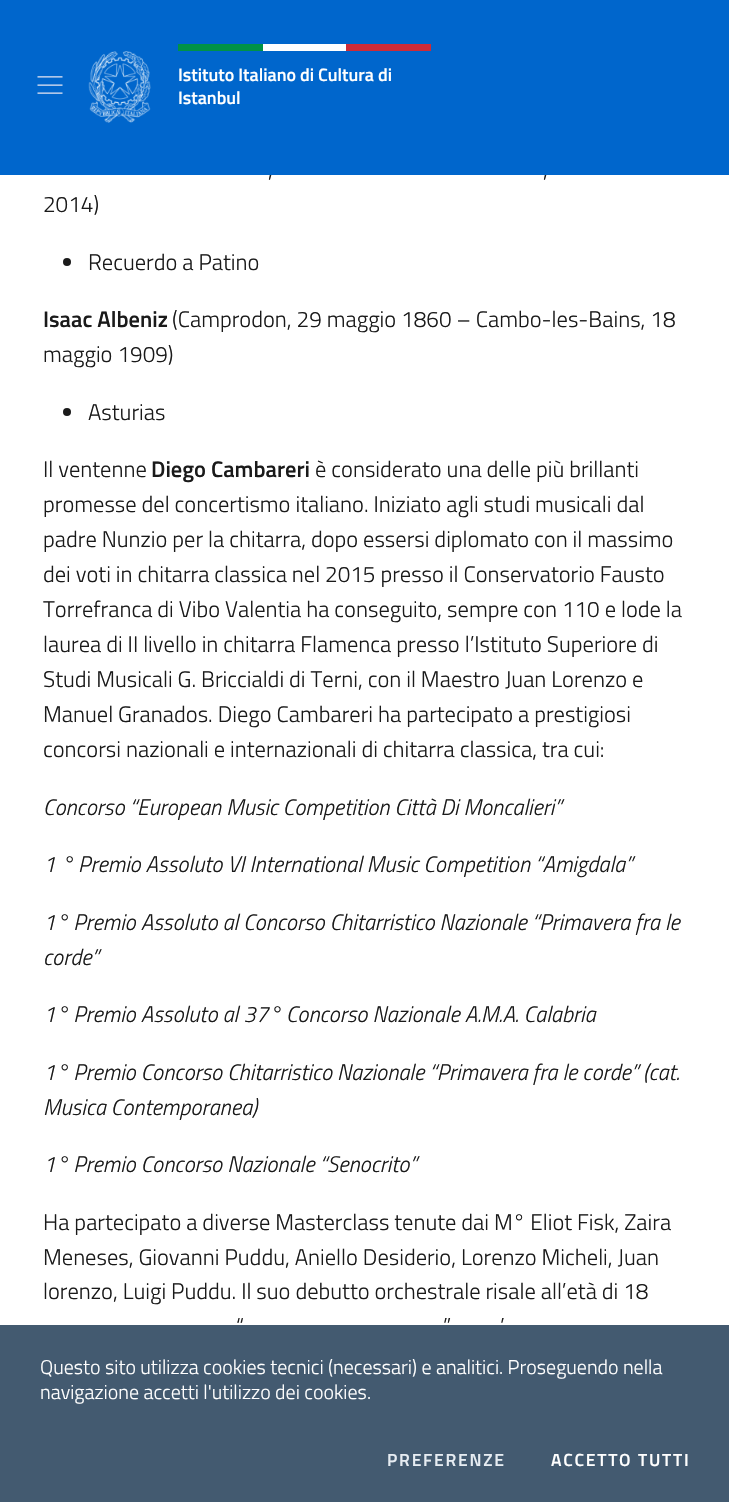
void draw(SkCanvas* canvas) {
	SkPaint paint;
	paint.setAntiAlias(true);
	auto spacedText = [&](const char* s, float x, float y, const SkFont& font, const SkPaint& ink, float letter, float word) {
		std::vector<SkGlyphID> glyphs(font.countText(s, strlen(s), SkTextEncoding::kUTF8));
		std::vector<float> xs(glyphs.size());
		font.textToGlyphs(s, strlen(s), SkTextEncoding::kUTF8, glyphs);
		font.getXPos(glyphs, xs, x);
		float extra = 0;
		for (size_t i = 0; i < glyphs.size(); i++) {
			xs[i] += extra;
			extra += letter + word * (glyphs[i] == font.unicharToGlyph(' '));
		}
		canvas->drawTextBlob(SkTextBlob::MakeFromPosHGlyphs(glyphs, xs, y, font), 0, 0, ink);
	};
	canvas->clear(0xffffffff);
	SkFont f1(fontMgr->matchFamilyStyle("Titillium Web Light", SkFontStyle(300, SkFontStyle::kNormal_Width, SkFontStyle::kUpright_Slant)), 22.5);
	f1.setSubpixel(true);
	paint.setColor(0xff1a1a1a);
	canvas->drawString(",", 268, 177, f1, paint);
	canvas->drawString(",", 543, 177, f1, paint);
	paint.setColor(0xff0066cc);
	canvas->drawRect(SkRect::MakeXYWH(0, 0, 729, 175), paint);
	canvas->drawImageRect(SkImages::DeferredFromEncodedData(SkData::MakeFromFileName("img1.png")), SkRect::MakeXYWH(37, 76, 26, 18), SkSamplingOptions());
	canvas->drawImageRect(SkImages::DeferredFromEncodedData(SkData::MakeFromFileName("img2.png")), SkRect::MakeXYWH(88, 51, 63, 72), SkSamplingOptions());
	paint.setColor(0xff009246);
	canvas->drawRect(SkRect::MakeXYWH(178, 44, 85, 7), paint);
	paint.setColor(0xffffffff);
	canvas->drawRect(SkRect::MakeXYWH(263, 44, 83, 7), paint);
	paint.setColor(0xffce2b37);
	canvas->drawRect(SkRect::MakeXYWH(346, 44, 85, 7), paint);
	SkFont f2(fontMgr->matchFamilyStyle("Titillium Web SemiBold", SkFontStyle(600, SkFontStyle::kNormal_Width, SkFontStyle::kUpright_Slant)), 18);
	f2.setSubpixel(true);
	paint.setColor(0xffffffff);
	canvas->drawString("Istituto Italiano di Cultura di", 178, 81, f2, paint);
	canvas->drawString("Istanbul", 178, 104, f2, paint);
	paint.setColor(0xff1a1a1a);
	canvas->drawString("2014)", 43, 212, f1, paint);
	canvas->drawCircle(67, 262, 4, paint);
	canvas->drawString("Recuerdo a Patino", 88, 270, f1, paint);
	SkFont f3(fontMgr->matchFamilyStyle("Titillium Web SemiBold", SkFontStyle(600, SkFontStyle::kNormal_Width, SkFontStyle::kUpright_Slant)), 22.5);
	f3.setSubpixel(true);
	canvas->drawString("Isaac Albeniz", 43, 327, f3, paint);
	canvas->drawString("(Camprodon, 29 maggio 1860 – Cambo-les-Bains, 18", 172, 327, f1, paint);
	canvas->drawString("maggio 1909)", 43, 362, f1, paint);
	canvas->drawCircle(67, 412, 4, paint);
	canvas->drawString("Asturias", 88, 420, f1, paint);
	canvas->drawString("Il ventenne", 43, 477, f1, paint);
	canvas->drawString("Diego Cambareri", 151, 477, f3, paint);
	canvas->drawString("è considerato una delle più brillanti", 315, 477, f1, paint);
	canvas->drawString("promesse del concertismo italiano. Iniziato agli studi musicali dal", 43, 512, f1, paint);
	canvas->drawString("padre Nunzio per la chitarra, dopo essersi diplomato con il massimo", 43, 547, f1, paint);
	canvas->drawString("dei voti in chitarra classica nel 2015 presso il Conservatorio Fausto", 43, 582, f1, paint);
	canvas->drawString("Torrefranca di Vibo Valentia ha conseguito, sempre con 110 e lode la", 43, 617, f1, paint);
	canvas->drawString("laurea di II livello in chitarra Flamenca presso l’Istituto Superiore di", 43, 652, f1, paint);
	canvas->drawString("Studi Musicali G. Briccialdi di Terni, con il Maestro Juan Lorenzo e", 43, 687, f1, paint);
	canvas->drawString("Manuel Granados. Diego Cambareri ha partecipato a prestigiosi", 43, 722, f1, paint);
	canvas->drawString("concorsi nazionali e internazionali di chitarra classica, tra cui:", 43, 757, f1, paint);
	SkFont f4(fontMgr->matchFamilyStyle("Titillium Web Light", SkFontStyle(300, SkFontStyle::kNormal_Width, SkFontStyle::kItalic_Slant)), 22.5);
	f4.setSubpixel(true);
	canvas->drawString("Concorso “European Music Competition Città Di Moncalieri”", 43, 815, f4, paint);
	canvas->drawString("1 ° Premio Assoluto VI International Music Competition “Amigdala”", 43, 872, f4, paint);
	canvas->drawString("1° Premio Assoluto al Concorso Chitarristico Nazionale “Primavera fra le", 43, 930, f4, paint);
	canvas->drawString("corde”", 43, 965, f4, paint);
	canvas->drawString("1° Premio Assoluto al 37° Concorso Nazionale A.M.A. Calabria", 43, 1022, f4, paint);
	canvas->drawString("1° Premio Concorso Chitarristico Nazionale “Primavera fra le corde” (cat.", 43, 1080, f4, paint);
	canvas->drawString("Musica Contemporanea)", 43, 1115, f4, paint);
	canvas->drawString("1° Premio Concorso Nazionale “Senocrito”", 43, 1172, f4, paint);
	canvas->drawString("Ha partecipato a diverse Masterclass tenute dai M° Eliot Fisk, Zaira", 43, 1230, f1, paint);
	canvas->drawString("Meneses, Giovanni Puddu, Aniello Desiderio, Lorenzo Micheli, Juan", 43, 1265, f1, paint);
	canvas->drawString("lorenzo, Luigi Puddu. Il suo debutto orchestrale risale all’età di 18", 43, 1299, f1, paint);
	canvas->drawString("“", 236, 1334, f1, paint);
	canvas->drawString("”", 443, 1334, f1, paint);
	canvas->drawString("’", 500, 1334, f1, paint);
	paint.setColor(0xff435a70);
	canvas->drawRect(SkRect::MakeXYWH(0, 1325, 729, 177), paint);
	SkFont f5(fontMgr->matchFamilyStyle("Titillium Web Light", SkFontStyle(300, SkFontStyle::kNormal_Width, SkFontStyle::kUpright_Slant)), 20);
	f5.setSubpixel(true);
	paint.setColor(0xffffffff);
	canvas->drawString("Questo sito utilizza cookies tecnici (necessari) e analitici. Proseguendo nella", 40, 1374, f5, paint);
	canvas->drawString("navigazione accetti l'utilizzo dei cookies.", 40, 1399, f5, paint);
	SkFont f6(fontMgr->matchFamilyStyle("Titillium Web SemiBold", SkFontStyle(600, SkFontStyle::kNormal_Width, SkFontStyle::kUpright_Slant)), 17.5);
	f6.setSubpixel(true);
	paint.setColor(0xffe6ecf2);
	spacedText("PREFERENZE", 387, 1466, f6, paint, 1.75, 0);
	paint.setColor(0xffffffff);
	spacedText("ACCETTO TUTTI", 551, 1466, f6, paint, 1.75, 0);
}
